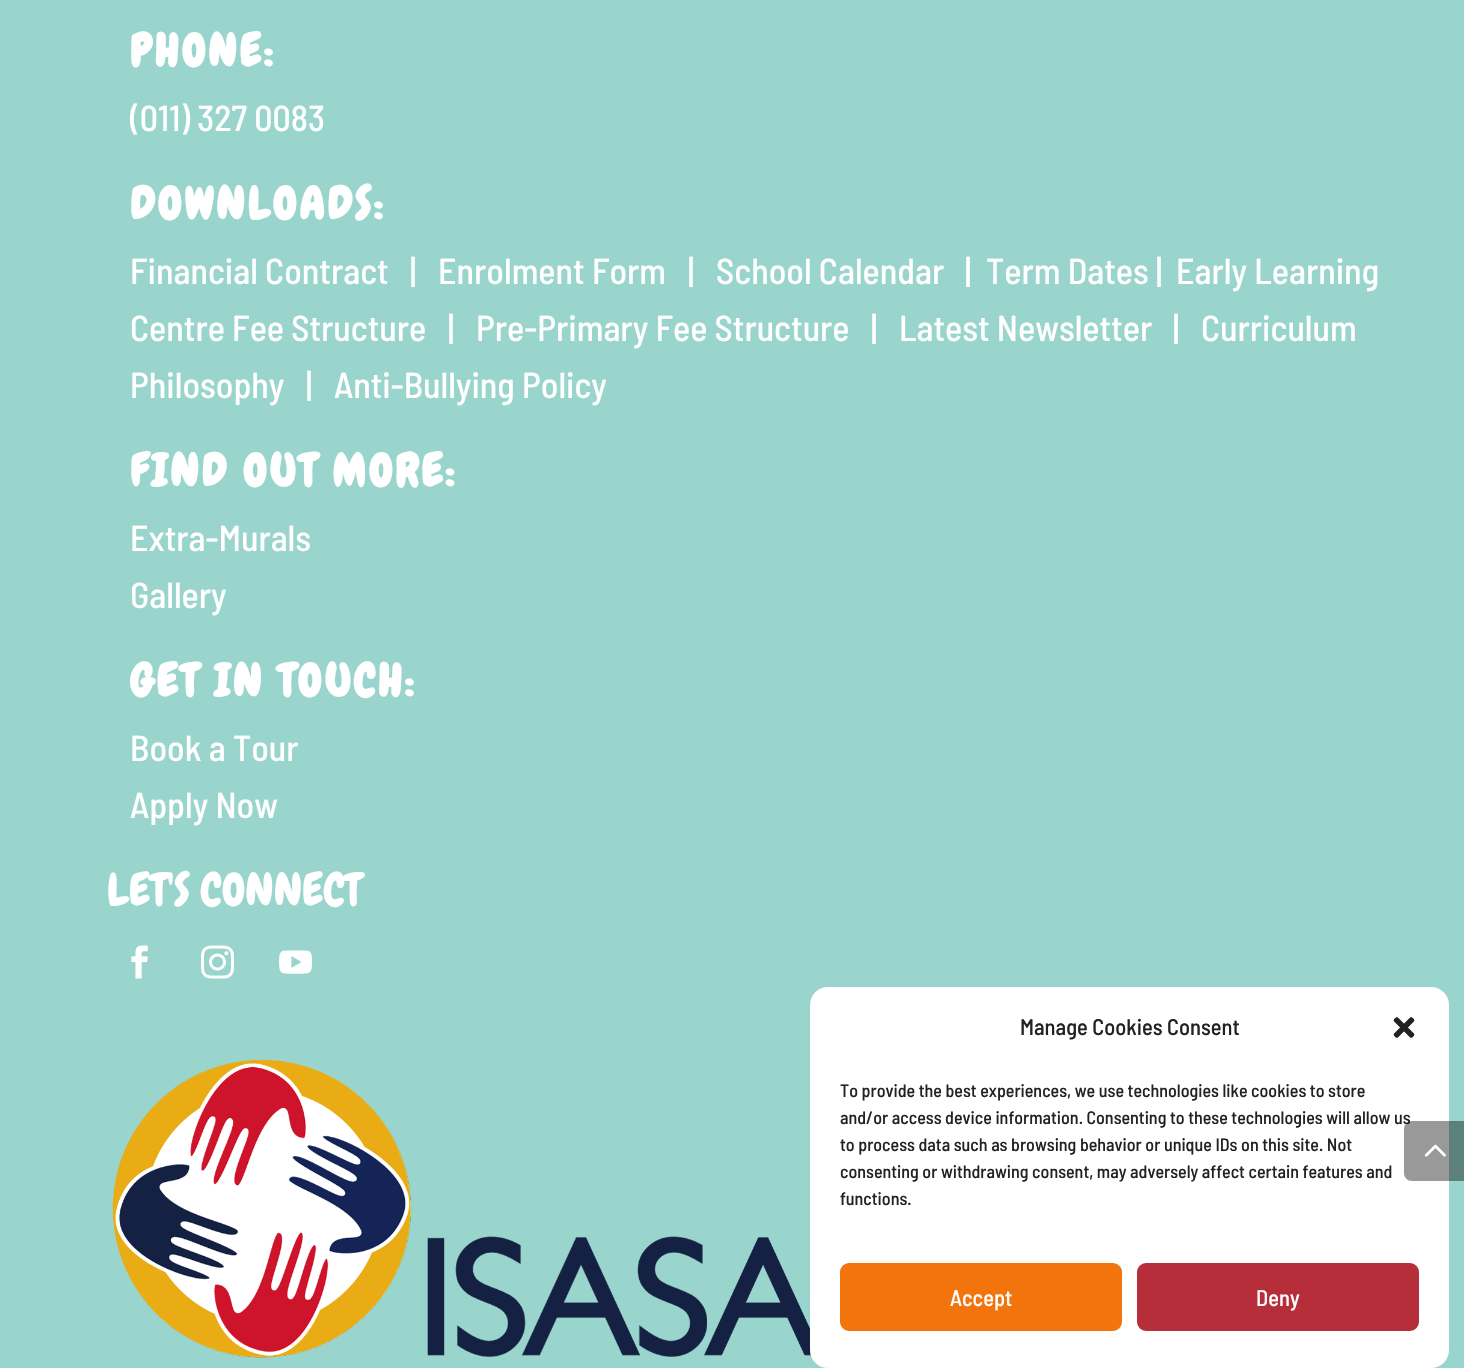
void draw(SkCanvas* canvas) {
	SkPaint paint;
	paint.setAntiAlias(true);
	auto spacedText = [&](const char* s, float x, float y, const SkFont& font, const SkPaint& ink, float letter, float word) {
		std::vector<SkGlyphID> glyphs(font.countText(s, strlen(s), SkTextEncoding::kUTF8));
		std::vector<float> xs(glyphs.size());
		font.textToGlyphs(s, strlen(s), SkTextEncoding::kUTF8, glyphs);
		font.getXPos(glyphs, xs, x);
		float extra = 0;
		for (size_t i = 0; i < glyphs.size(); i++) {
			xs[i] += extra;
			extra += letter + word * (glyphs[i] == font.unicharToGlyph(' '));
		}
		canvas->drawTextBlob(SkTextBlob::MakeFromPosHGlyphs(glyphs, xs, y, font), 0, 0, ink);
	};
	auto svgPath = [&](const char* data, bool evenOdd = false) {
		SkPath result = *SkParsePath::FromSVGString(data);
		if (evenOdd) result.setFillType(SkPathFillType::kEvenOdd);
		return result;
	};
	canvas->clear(0xff99d5cd);
	SkFont f1(fontMgr->matchFamilyStyle("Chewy", SkFontStyle::Bold()), 45);
	f1.setSubpixel(true);
	paint.setColor(0xffffffff);
	spacedText("PHONE:", 130, 66, f1, paint, 3, 0);
	SkFont f2(fontMgr->matchFamilyStyle("Barlow Semi Condensed", SkFontStyle(500, SkFontStyle::kNormal_Width, SkFontStyle::kUpright_Slant)), 36);
	f2.setSubpixel(true);
	canvas->drawString("(011) 327 0083", 130, 131, f2, paint);
	spacedText("DOWNLOADS:", 130, 219, f1, paint, 3, 0);
	canvas->drawString("Financial Contract", 130, 284, f2, paint);
	canvas->drawString("|", 410, 284, f2, paint);
	canvas->drawString("Enrolment Form", 438, 284, f2, paint);
	canvas->drawString("|", 688, 284, f2, paint);
	canvas->drawString("School Calendar", 716, 284, f2, paint);
	canvas->drawString("|", 965, 284, f2, paint);
	canvas->drawString("Term Dates |", 986, 284, f2, paint);
	canvas->drawString("Early Learning", 1176, 284, f2, paint);
	canvas->drawString("Centre Fee Structure", 130, 341, f2, paint);
	canvas->drawString("|", 448, 341, f2, paint);
	canvas->drawString("Pre-Primary Fee Structure", 476, 341, f2, paint);
	canvas->drawString("|", 871, 341, f2, paint);
	canvas->drawString("Latest Newsletter", 899, 341, f2, paint);
	canvas->drawString("|", 1173, 341, f2, paint);
	canvas->drawString("Curriculum", 1201, 341, f2, paint);
	canvas->drawString("Philosophy", 130, 398, f2, paint);
	canvas->drawString("|", 306, 398, f2, paint);
	canvas->drawString("Anti-Bullying Policy", 334, 398, f2, paint);
	spacedText("FIND OUT MORE:", 130, 486, f1, paint, 3, 0);
	canvas->drawString("Extra-Murals", 130, 551, f2, paint);
	canvas->drawString("Gallery", 130, 608, f2, paint);
	spacedText("GET IN TOUCH:", 130, 696, f1, paint, 3, 0);
	canvas->drawString("Book a Tour", 130, 761, f2, paint);
	canvas->drawString("Apply Now", 130, 818, f2, paint);
	SkFont f3(fontMgr->matchFamilyStyle("Chewy", SkFontStyle::Normal()), 45);
	f3.setSubpixel(true);
	canvas->drawString("LET'S CONNECT", 107, 905, f3, paint);
	canvas->drawImageRect(SkImages::DeferredFromEncodedData(SkData::MakeFromFileName("img1.png")), SkRect::MakeXYWH(131, 945, 17, 34), SkSamplingOptions());
	canvas->drawImageRect(SkImages::DeferredFromEncodedData(SkData::MakeFromFileName("img2.png")), SkRect::MakeXYWH(201, 945, 33, 34), SkSamplingOptions());
	canvas->drawImageRect(SkImages::DeferredFromEncodedData(SkData::MakeFromFileName("img3.png")), SkRect::MakeXYWH(279, 950, 33, 24), SkSamplingOptions());
	canvas->drawImageRect(SkImages::DeferredFromEncodedData(SkData::MakeFromFileName("img4.png")), SkRect::MakeXYWH(112, 1059, 699, 299), SkSamplingOptions());
	canvas->drawRoundRect(SkRect::MakeXYWH(810, 987, 639, 381), 18, 18, paint);
	SkFont f4(fontMgr->matchFamilyStyle("Barlow Semi Condensed", SkFontStyle(500, SkFontStyle::kNormal_Width, SkFontStyle::kUpright_Slant)), 22.5);
	f4.setSubpixel(true);
	paint.setColor(0xff222222);
	canvas->drawString("Manage Cookies Consent", 1020, 1035, f4, paint);
	canvas->drawImageRect(SkImages::DeferredFromEncodedData(SkData::MakeFromFileName("img5.png")), SkRect::MakeXYWH(1393, 1017, 22, 21), SkSamplingOptions());
	SkFont f5(fontMgr->matchFamilyStyle("Barlow Semi Condensed", SkFontStyle(500, SkFontStyle::kNormal_Width, SkFontStyle::kUpright_Slant)), 18);
	f5.setSubpixel(true);
	canvas->drawString("To provide the best experiences, we use technologies like cookies to store", 840, 1097, f5, paint);
	canvas->drawString("and/or access device information. Consenting to these technologies will allow us", 840, 1124, f5, paint);
	canvas->drawString("to process data such as browsing behavior or unique IDs on this site. Not", 840, 1151, f5, paint);
	canvas->drawString("consenting or withdrawing consent, may adversely affect certain features and", 840, 1178, f5, paint);
	canvas->drawString("functions.", 840, 1205, f5, paint);
	paint.setColor(0xfff2740d);
	canvas->drawRoundRect(SkRect::MakeXYWH(841, 1264, 280, 66), 8, 8, paint);
	paint.setStroke(true);
	paint.setStrokeWidth(2);
	canvas->drawRoundRect(SkRect::MakeXYWH(841, 1264, 280, 66), 8, 8, paint);
	paint.setStroke(false);
	paint.setColor(0xffffffff);
	canvas->drawString("Accept", 950, 1306, f4, paint);
	paint.setColor(0xffb62e39);
	canvas->drawRoundRect(SkRect::MakeXYWH(1138, 1264, 280, 66), 8, 8, paint);
	paint.setStroke(true);
	canvas->drawRoundRect(SkRect::MakeXYWH(1138, 1264, 280, 66), 8, 8, paint);
	paint.setStroke(false);
	paint.setColor(0xffffffff);
	canvas->drawString("Deny", 1256, 1306, f4, paint);
	paint.setColor(0x66000000);
	canvas->drawPath(svgPath("M1412 1121H1464V1181H1412C1407.5 1181 1404 1177.5 1404 1173V1129C1404 1124.5 1407.5 1121 1412 1121Z"), paint);
	canvas->drawImageRect(SkImages::DeferredFromEncodedData(SkData::MakeFromFileName("img6.png")), SkRect::MakeXYWH(1424, 1144, 22, 13), SkSamplingOptions());
}
